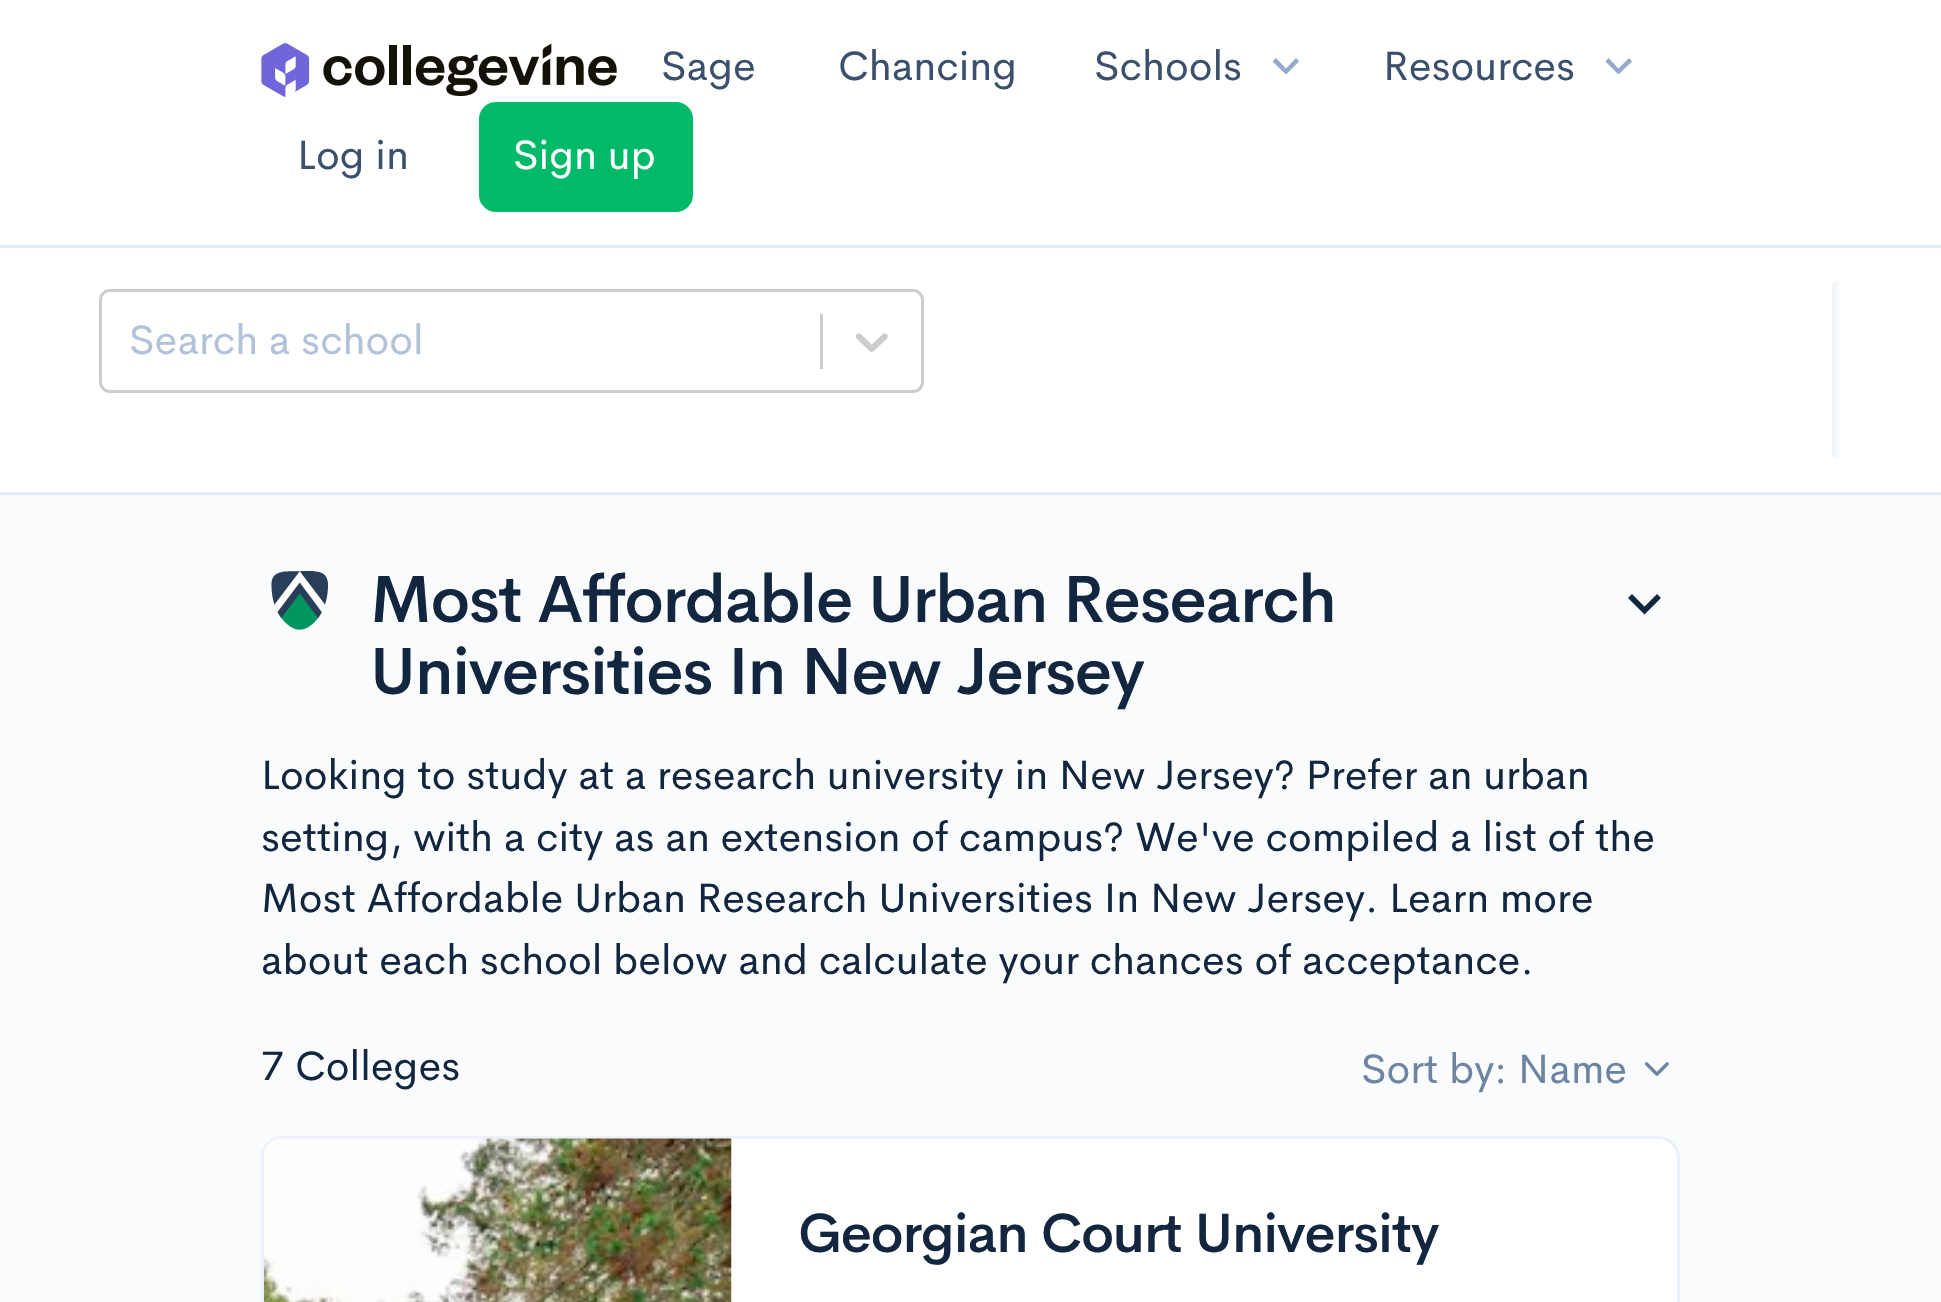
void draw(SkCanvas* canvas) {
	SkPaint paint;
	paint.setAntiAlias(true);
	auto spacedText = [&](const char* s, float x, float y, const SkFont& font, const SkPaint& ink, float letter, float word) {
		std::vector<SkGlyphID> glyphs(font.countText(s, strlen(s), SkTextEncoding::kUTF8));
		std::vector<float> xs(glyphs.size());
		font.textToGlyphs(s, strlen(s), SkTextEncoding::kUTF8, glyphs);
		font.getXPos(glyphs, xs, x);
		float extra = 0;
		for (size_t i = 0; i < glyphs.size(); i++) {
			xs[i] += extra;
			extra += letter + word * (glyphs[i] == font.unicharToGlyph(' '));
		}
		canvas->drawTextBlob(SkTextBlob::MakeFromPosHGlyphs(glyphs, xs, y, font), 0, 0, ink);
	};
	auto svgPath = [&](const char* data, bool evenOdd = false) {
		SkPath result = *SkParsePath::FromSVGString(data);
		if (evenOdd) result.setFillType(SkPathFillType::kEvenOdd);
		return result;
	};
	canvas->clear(0xfff9fbfd);
	paint.setColor(0xffffffff);
	canvas->drawRect(SkRect::MakeXYWH(0, 0, 1941, 245), paint);
	paint.setColor(0xffe3ebf6);
	canvas->drawRect(SkRect::MakeXYWH(0, 245, 1941, 3), paint);
	canvas->drawImageRect(SkImages::DeferredFromEncodedData(SkData::MakeFromFileName("img1.png")), SkRect::MakeXYWH(261, 43, 356, 54), SkSamplingOptions());
	SkFont f1(fontMgr->matchFamilyStyle("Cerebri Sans", SkFontStyle::Normal()), 41.25);
	f1.setSubpixel(true);
	paint.setColor(0xff3b506c);
	canvas->drawString("Sage", 661, 80, f1, paint);
	canvas->drawString("Chancing", 838, 80, f1, paint);
	canvas->drawString("Schools", 1094, 80, f1, paint);
	paint.setColor(0xff95aac9);
	canvas->drawPath(svgPath("M1286 74.5L1272.5 61.5L1276 58L1286 68.5L1296 58L1299 61.5Z"), paint);
	paint.setColor(0xff3b506c);
	canvas->drawString("Resources", 1383, 80, f1, paint);
	paint.setColor(0xff95aac9);
	canvas->drawPath(svgPath("M1618.5 74.5L1605.5 61.5L1608.5 58L1618.5 68.5L1629 58L1632 61.5Z"), paint);
	paint.setColor(0xff3b506c);
	canvas->drawString("Log in", 297, 169, f1, paint);
	paint.setColor(0xff00ba69);
	canvas->drawRoundRect(SkRect::MakeXYWH(480.5, 103.5, 211, 107), 15.5, 15.5, paint);
	paint.setStroke(true);
	paint.setStrokeWidth(3);
	canvas->drawRoundRect(SkRect::MakeXYWH(480.5, 103.5, 211, 107), 15.5, 15.5, paint);
	paint.setStroke(false);
	paint.setColor(0xffffffff);
	canvas->drawString("Sign up", 513, 169, f1, paint);
	canvas->drawRect(SkRect::MakeXYWH(0, 248, 1941, 244), paint);
	paint.setColor(0xffe3ebf6);
	canvas->drawRect(SkRect::MakeXYWH(0, 492, 1941, 3), paint);
	paint.setStroke(true);
	paint.setColor(0xffcccccc);
	canvas->drawRoundRect(SkRect::MakeXYWH(100.5, 290.5, 822, 101), 9.5, 9.5, paint);
	paint.setStroke(false);
	paint.setColor(0xffb1c2d9);
	canvas->drawString("Search a school", 129, 354, f1, paint);
	paint.setColor(0xffcccccc);
	canvas->drawRect(SkRect::MakeXYWH(820, 314, 3, 55), paint);
	canvas->drawImageRect(SkImages::DeferredFromEncodedData(SkData::MakeFromFileName("img2.png")), SkRect::MakeXYWH(855, 333, 33, 19), SkSamplingOptions());
	{
		const SkColor colors[] = {0xfff1f4f8, 0xffffffff};
		const float stops[] = {0, 1};
		const SkPoint ends[] = {{1832, 370}, {1843, 370}};
		paint.setShader(SkGradientShader::MakeLinear(ends, colors, stops, 2, SkTileMode::kClamp));
		paint.setAlpha(255);
	}
	canvas->drawRoundRect(SkRect::MakeXYWH(1832, 281, 11, 178), 5.5, 5.5, paint);
	canvas->drawImageRect(SkImages::DeferredFromEncodedData(SkData::MakeFromFileName("img3.png")), SkRect::MakeXYWH(271, 571, 57, 59), SkSamplingOptions());
	SkFont f2(fontMgr->matchFamilyStyle("Cerebri Sans", SkFontStyle(500, SkFontStyle::kNormal_Width, SkFontStyle::kUpright_Slant)), 66);
	f2.setSubpixel(true);
	paint.setShader(nullptr);
	paint.setColor(0xff12263f);
	spacedText("Most Affordable Urban Research", 370, 622, f2, paint, -1.3, 0);
	spacedText("Universities In New Jersey", 370, 694, f2, paint, -1.3, 0);
	canvas->drawPath(svgPath("M1644.5 614.5L1628 598L1632 594L1644.5 606.5L1657 594L1661 598Z"), paint);
	canvas->drawString("Looking to study at a research university in New Jersey? Prefer an urban", 261, 789, f1, paint);
	canvas->drawString("setting, with a city as an extension of campus? We've compiled a list of the", 261, 851, f1, paint);
	canvas->drawString("Most Affordable Urban Research Universities In New Jersey. Learn more", 261, 912, f1, paint);
	canvas->drawString("about each school below and calculate your chances of acceptance.", 261, 974, f1, paint);
	canvas->drawString("7 Colleges", 261, 1080, f1, paint);
	paint.setColor(0xff6e84a3);
	canvas->drawString("Sort by: Name", 1361, 1083, f1, paint);
	canvas->drawImageRect(SkImages::DeferredFromEncodedData(SkData::MakeFromFileName("img4.png")), SkRect::MakeXYWH(1644, 1062, 25, 14), SkSamplingOptions());
	paint.setColor(0xffffffff);
	canvas->drawPath(svgPath("M283 1136H1658C1670 1136 1680 1146 1680 1158V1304H261V1158C261 1146 271 1136 283 1136Z"), paint);
	paint.setStroke(true);
	paint.setColor(0xffedf2f9);
	canvas->drawRoundRect(SkRect::MakeXYWH(262.5, 1137.5, 1416, 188), 20.5, 20.5, paint);
	canvas->drawImageRect(SkImages::DeferredFromEncodedData(SkData::MakeFromFileName("img5.png")), SkRect::MakeXYWH(264, 1138, 468, 164), SkSamplingOptions());
	SkFont f3(fontMgr->matchFamilyStyle("Cerebri Sans", SkFontStyle(500, SkFontStyle::kNormal_Width, SkFontStyle::kUpright_Slant)), 55);
	f3.setSubpixel(true);
	paint.setStroke(false);
	paint.setColor(0xff12263f);
	spacedText("Georgian Court University", 798, 1252, f3, paint, -1.1, 0);
}
